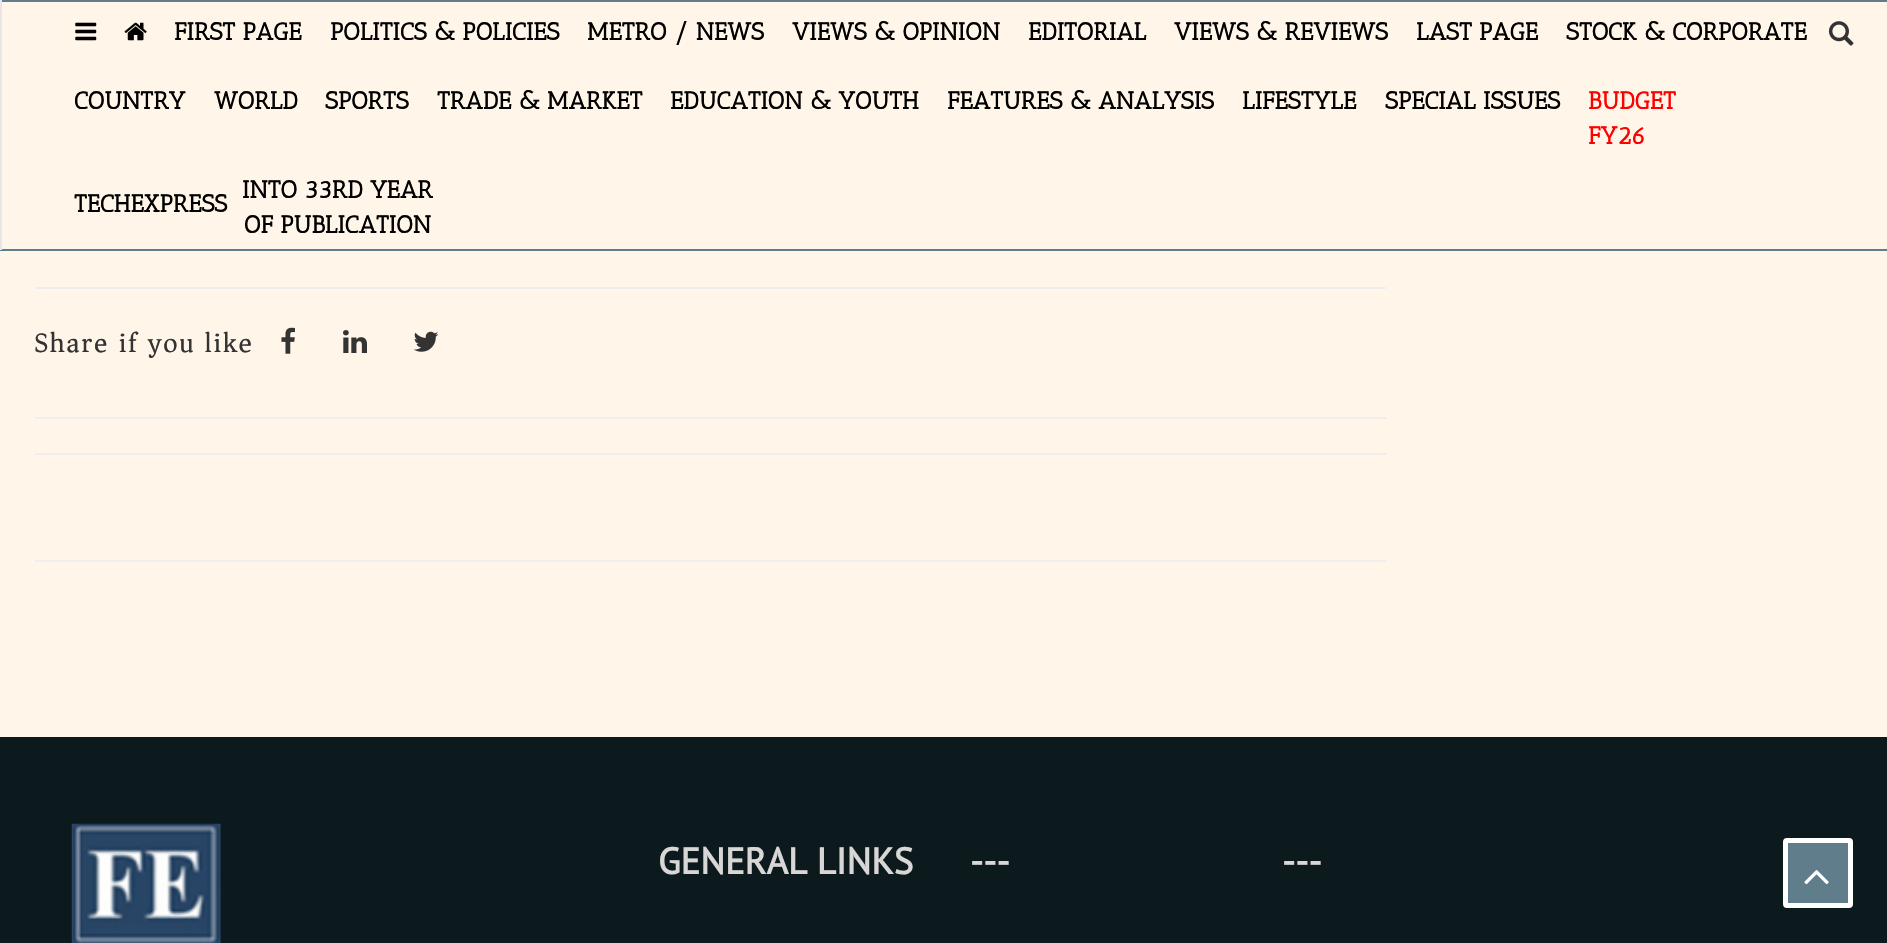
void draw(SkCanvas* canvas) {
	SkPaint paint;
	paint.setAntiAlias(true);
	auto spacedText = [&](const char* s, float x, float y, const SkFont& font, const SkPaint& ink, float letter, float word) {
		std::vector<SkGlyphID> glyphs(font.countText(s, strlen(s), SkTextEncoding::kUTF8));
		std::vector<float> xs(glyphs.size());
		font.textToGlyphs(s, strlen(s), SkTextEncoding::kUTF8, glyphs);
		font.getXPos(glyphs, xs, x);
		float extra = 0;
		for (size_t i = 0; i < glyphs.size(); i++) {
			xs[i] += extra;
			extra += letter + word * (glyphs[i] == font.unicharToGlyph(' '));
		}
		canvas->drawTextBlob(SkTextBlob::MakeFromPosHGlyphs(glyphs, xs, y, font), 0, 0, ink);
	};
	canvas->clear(0xfffff5e8);
	paint.setColor(0xff607d8b);
	canvas->drawRect(SkRect::MakeXYWH(0, 0, 1887, 2), paint);
	canvas->drawRect(SkRect::MakeXYWH(0, 249, 1887, 2), paint);
	paint.setColor(0xffe7e7e7);
	canvas->drawRect(SkRect::MakeXYWH(0, 0, 2, 250), paint);
	canvas->drawImageRect(SkImages::DeferredFromEncodedData(SkData::MakeFromFileName("img1.png")), SkRect::MakeXYWH(75, 22, 22, 19), SkSamplingOptions());
	canvas->drawImageRect(SkImages::DeferredFromEncodedData(SkData::MakeFromFileName("img2.png")), SkRect::MakeXYWH(124, 22, 23, 19), SkSamplingOptions());
	SkFont f1(fontMgr->matchFamilyStyle("Antic Slab", SkFontStyle::Bold()), 24.5);
	f1.setSubpixel(true);
	paint.setColor(0xff000000);
	canvas->drawString("FIRST PAGE", 174, 40, f1, paint);
	canvas->drawString("POLITICS & POLICIES", 330, 40, f1, paint);
	canvas->drawString("METRO / NEWS", 587, 40, f1, paint);
	canvas->drawString("VIEWS & OPINION", 792, 40, f1, paint);
	canvas->drawString("EDITORIAL", 1028, 40, f1, paint);
	canvas->drawString("VIEWS & REVIEWS", 1174, 40, f1, paint);
	canvas->drawString("LAST PAGE", 1416, 40, f1, paint);
	canvas->drawString("STOCK & CORPORATE", 1566, 40, f1, paint);
	canvas->drawString("COUNTRY", 74, 109, f1, paint);
	canvas->drawString("WORLD", 214, 109, f1, paint);
	canvas->drawString("SPORTS", 325, 109, f1, paint);
	canvas->drawString("TRADE & MARKET", 437, 109, f1, paint);
	canvas->drawString("EDUCATION & YOUTH", 670, 109, f1, paint);
	canvas->drawString("FEATURES & ANALYSIS", 947, 109, f1, paint);
	canvas->drawString("LIFESTYLE", 1242, 109, f1, paint);
	canvas->drawString("SPECIAL ISSUES", 1385, 109, f1, paint);
	paint.setColor(0xffff0000);
	canvas->drawString("BUDGET", 1588, 109, f1, paint);
	canvas->drawString("FY26", 1588, 144, f1, paint);
	paint.setColor(0xff000000);
	canvas->drawString("TECHEXPRESS", 74, 212, f1, paint);
	canvas->drawString("INTO 33RD YEAR", 242, 198, f1, paint);
	canvas->drawString("OF PUBLICATION", 244, 233, f1, paint);
	canvas->drawImageRect(SkImages::DeferredFromEncodedData(SkData::MakeFromFileName("img3.png")), SkRect::MakeXYWH(1828, 21, 26, 25), SkSamplingOptions());
	paint.setColor(0xffeeeeee);
	canvas->drawRect(SkRect::MakeXYWH(35, 287, 1351, 2), paint);
	SkFont f2(fontMgr->matchFamilyStyle("Asar", SkFontStyle::Normal()), 28);
	f2.setSubpixel(true);
	paint.setColor(0xff333333);
	spacedText("Share if you like", 34, 352, f2, paint, 1.75, 0);
	canvas->drawImageRect(SkImages::DeferredFromEncodedData(SkData::MakeFromFileName("img4.png")), SkRect::MakeXYWH(281, 327, 14, 27), SkSamplingOptions());
	canvas->drawImageRect(SkImages::DeferredFromEncodedData(SkData::MakeFromFileName("img5.png")), SkRect::MakeXYWH(343, 330, 24, 23), SkSamplingOptions());
	canvas->drawImageRect(SkImages::DeferredFromEncodedData(SkData::MakeFromFileName("img6.png")), SkRect::MakeXYWH(413, 331, 26, 21), SkSamplingOptions());
	paint.setColor(0xffeeeeee);
	canvas->drawRect(SkRect::MakeXYWH(35, 417, 1351, 2), paint);
	canvas->drawRect(SkRect::MakeXYWH(35, 453, 1351, 2), paint);
	canvas->drawRect(SkRect::MakeXYWH(35, 560, 1351, 2), paint);
	paint.setColor(0xff0c1a1e);
	canvas->drawRect(SkRect::MakeXYWH(0, 737, 1887, 206), paint);
	canvas->drawImageRect(SkImages::DeferredFromEncodedData(SkData::MakeFromFileName("img7.png")), SkRect::MakeXYWH(71, 823, 150, 120), SkSamplingOptions());
	SkFont f3(fontMgr->matchFamilyStyle("PT Sans", SkFontStyle::Bold()), 36.75);
	f3.setSubpixel(true);
	paint.setColor(0xffd9d6d6);
	canvas->drawString("GENERAL LINKS", 658, 874, f3, paint);
	canvas->drawString("---", 970, 874, f3, paint);
	canvas->drawString("---", 1282, 874, f3, paint);
	paint.setColor(0xff607d8b);
	canvas->drawRoundRect(SkRect::MakeXYWH(1785.5, 840.5, 65, 65), 1.5, 1.5, paint);
	paint.setStroke(true);
	paint.setStrokeWidth(5);
	paint.setColor(0xffffffff);
	canvas->drawRoundRect(SkRect::MakeXYWH(1785.5, 840.5, 65, 65), 1.5, 1.5, paint);
	canvas->drawImageRect(SkImages::DeferredFromEncodedData(SkData::MakeFromFileName("img8.png")), SkRect::MakeXYWH(1804, 870, 25, 15), SkSamplingOptions());
}
